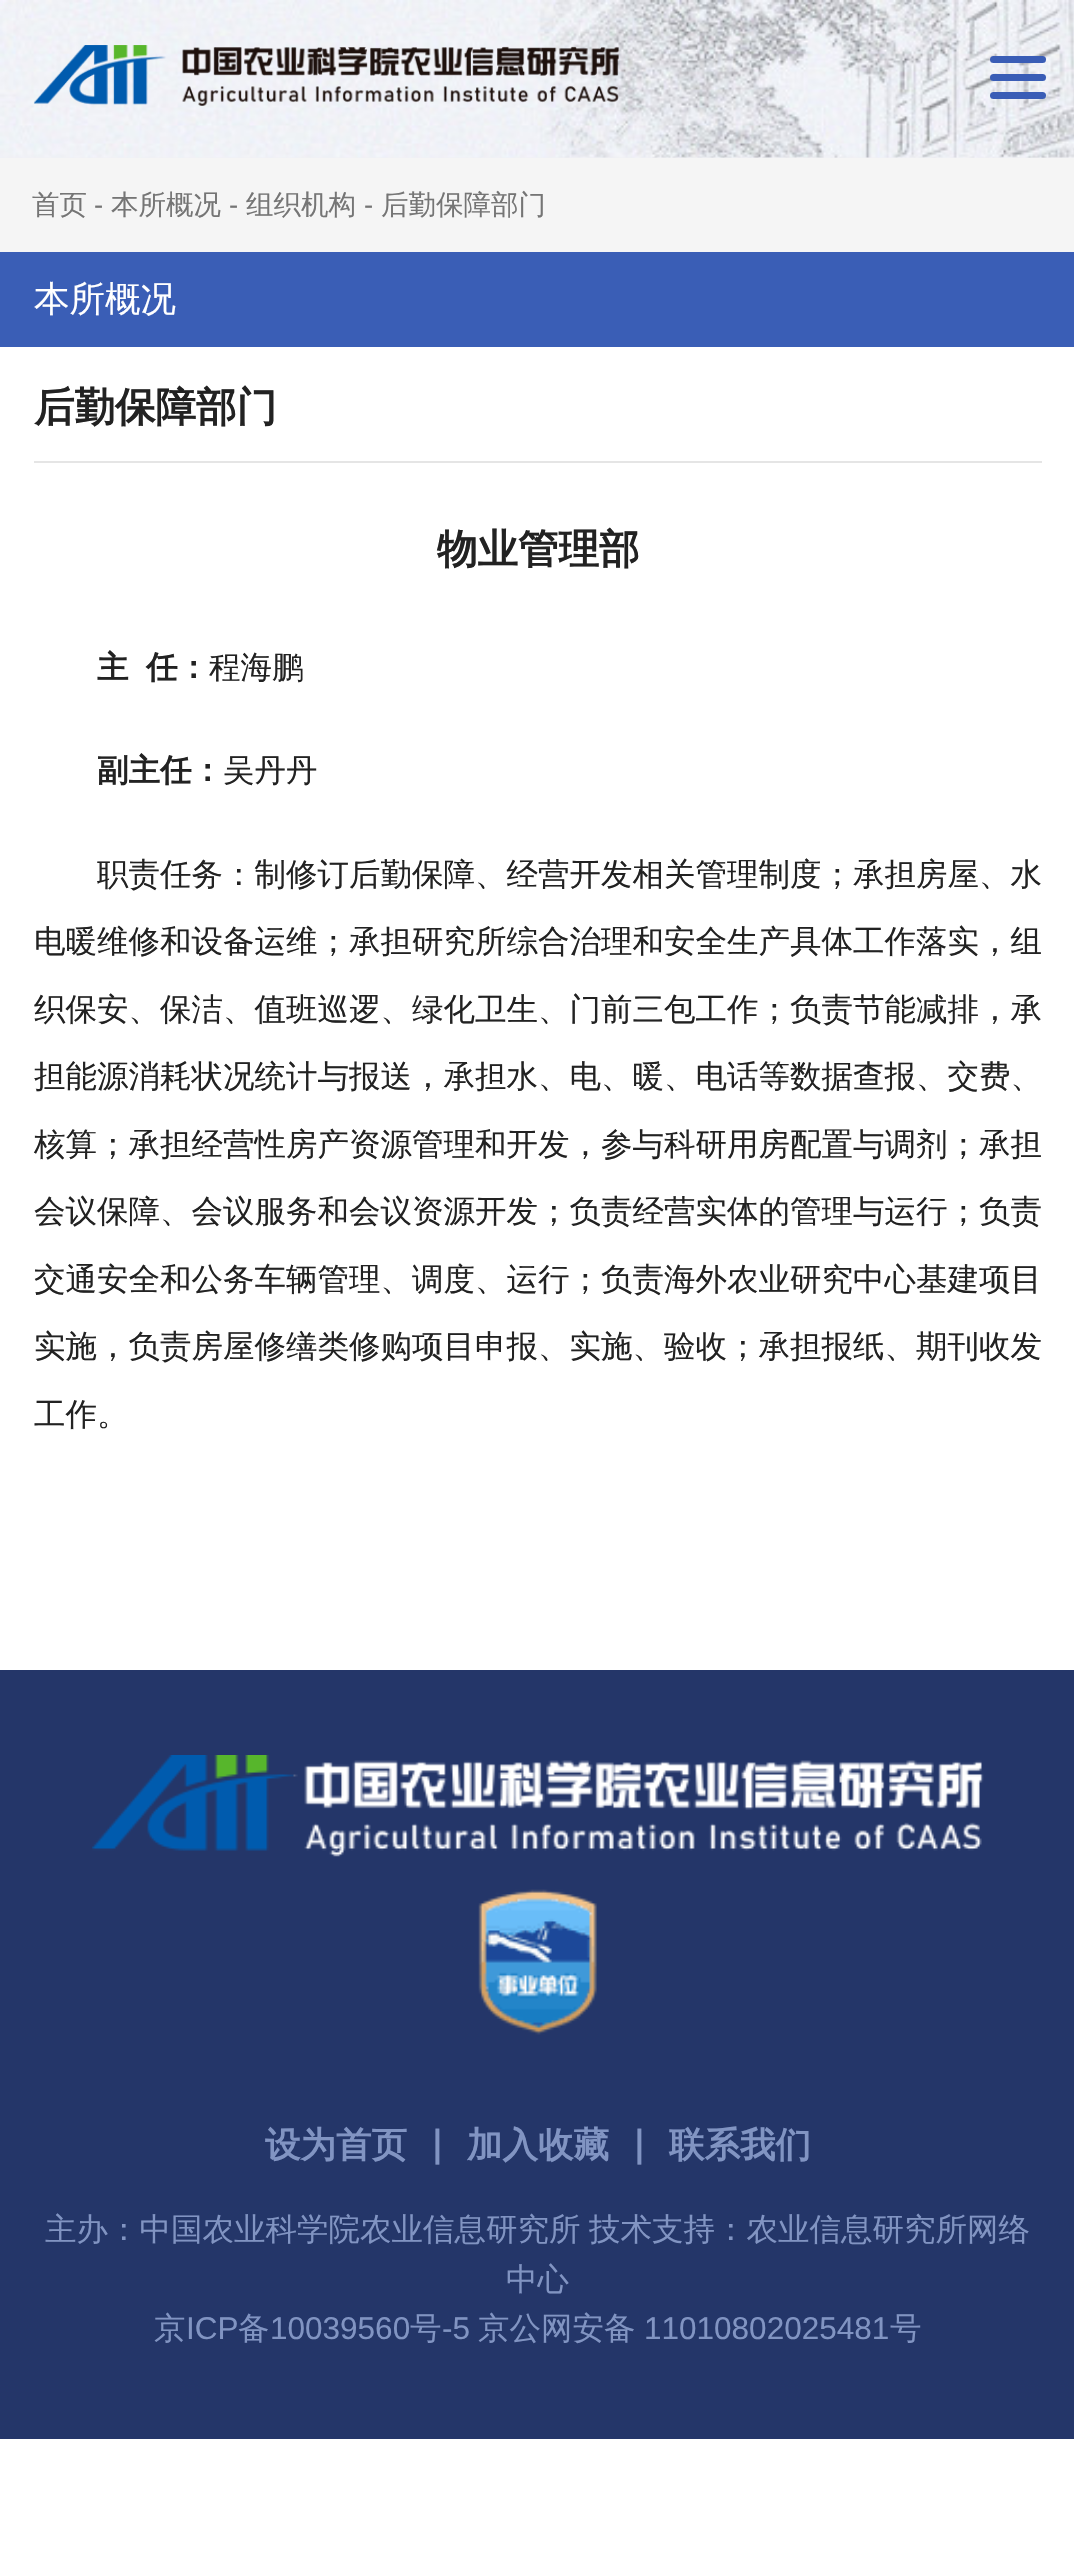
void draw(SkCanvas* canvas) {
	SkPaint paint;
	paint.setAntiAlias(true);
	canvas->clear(0xffffffff);
	paint.setColor(0xfff0f1f5);
	canvas->drawRect(SkRect::MakeXYWH(0, 157, 1074, 1), paint);
	canvas->drawImageRect(SkImages::DeferredFromEncodedData(SkData::MakeFromFileName("img1.png")), SkRect::MakeXYWH(0, 0, 1074, 158), SkSamplingOptions());
	canvas->drawImageRect(SkImages::DeferredFromEncodedData(SkData::MakeFromFileName("img2.png")), SkRect::MakeXYWH(33, 45, 586, 61), SkSamplingOptions());
	paint.setColor(0xff3a5db6);
	canvas->drawRoundRect(SkRect::MakeXYWH(990, 56, 56, 7), 3.5, 3.5, paint);
	canvas->drawRoundRect(SkRect::MakeXYWH(990, 74, 56, 7), 3.5, 3.5, paint);
	canvas->drawRoundRect(SkRect::MakeXYWH(990, 92, 56, 7), 3.5, 3.5, paint);
	paint.setColor(0xfff5f5f5);
	canvas->drawRect(SkRect::MakeXYWH(0, 158, 1074, 94), paint);
	SkFont f1(fontMgr->matchFamilyStyle("WenQuanYi Zen Hei", SkFontStyle(500, SkFontStyle::kNormal_Width, SkFontStyle::kUpright_Slant)), 27.5);
	f1.setSubpixel(true);
	paint.setColor(0xff757575);
	canvas->drawString("首页", 32, 214, f1, paint);
	SkFont f2(fontMgr->matchFamilyStyle("Liberation Sans", SkFontStyle::Normal()), 27.5);
	f2.setSubpixel(true);
	canvas->drawString("-", 94, 214, f2, paint);
	canvas->drawString("本所概况", 111, 214, f1, paint);
	canvas->drawString("-", 229, 214, f2, paint);
	canvas->drawString("组织机构", 246, 214, f1, paint);
	canvas->drawString("-", 364, 214, f2, paint);
	canvas->drawString("后勤保障部门", 381, 214, f1, paint);
	paint.setColor(0xff3a5eb6);
	canvas->drawRect(SkRect::MakeXYWH(0, 252, 1074, 95), paint);
	SkFont f3(fontMgr->matchFamilyStyle("WenQuanYi Zen Hei", SkFontStyle(500, SkFontStyle::kNormal_Width, SkFontStyle::kUpright_Slant)), 35.5);
	f3.setSubpixel(true);
	paint.setColor(0xffffffff);
	canvas->drawString("本所概况", 34, 311, f3, paint);
	paint.setColor(0xffe5e5e5);
	canvas->drawRect(SkRect::MakeXYWH(34, 461, 1008, 2), paint);
	SkFont f4(fontMgr->matchFamilyStyle("WenQuanYi Zen Hei", SkFontStyle::Bold()), 40.5);
	f4.setSubpixel(true);
	paint.setColor(0xff222222);
	canvas->drawString("后勤保障部门", 34, 421, f4, paint);
	canvas->drawString("物业管理部", 437, 563, f4, paint);
	SkFont f5(fontMgr->matchFamilyStyle("WenQuanYi Zen Hei", SkFontStyle::Bold()), 31.5);
	f5.setSubpixel(true);
	canvas->drawString("主", 97, 678, f5, paint);
	canvas->drawString("任：", 146, 678, f5, paint);
	SkFont f6(fontMgr->matchFamilyStyle("WenQuanYi Zen Hei", SkFontStyle(500, SkFontStyle::kNormal_Width, SkFontStyle::kUpright_Slant)), 31.5);
	f6.setSubpixel(true);
	canvas->drawString("程海鹏", 209, 678, f6, paint);
	canvas->drawString("副主任：", 97, 781, f5, paint);
	canvas->drawString("吴丹丹", 223, 781, f6, paint);
	canvas->drawString("职责任务：制修订后勤保障、经营开发相关管理制度；承担房屋、水", 97, 885, f6, paint);
	canvas->drawString("电暖维修和设备运维；承担研究所综合治理和安全生产具体工作落实，组", 34, 952, f6, paint);
	canvas->drawString("织保安、保洁、值班巡逻、绿化卫生、门前三包工作；负责节能减排，承", 34, 1020, f6, paint);
	canvas->drawString("担能源消耗状况统计与报送，承担水、电、暖、电话等数据查报、交费、", 34, 1087, f6, paint);
	canvas->drawString("核算；承担经营性房产资源管理和开发，参与科研用房配置与调剂；承担", 34, 1155, f6, paint);
	canvas->drawString("会议保障、会议服务和会议资源开发；负责经营实体的管理与运行；负责", 34, 1222, f6, paint);
	canvas->drawString("交通安全和公务车辆管理、调度、运行；负责海外农业研究中心基建项目", 34, 1290, f6, paint);
	canvas->drawString("实施，负责房屋修缮类修购项目申报、实施、验收；承担报纸、期刊收发", 34, 1357, f6, paint);
	canvas->drawString("工作。", 34, 1425, f6, paint);
	paint.setColor(0xff243669);
	canvas->drawRect(SkRect::MakeXYWH(0, 1670, 1074, 769), paint);
	canvas->drawImageRect(SkImages::DeferredFromEncodedData(SkData::MakeFromFileName("img3.png")), SkRect::MakeXYWH(92, 1755, 892, 102), SkSamplingOptions());
	canvas->drawImageRect(SkImages::DeferredFromEncodedData(SkData::MakeFromFileName("img4.png")), SkRect::MakeXYWH(478, 1889, 119, 146), SkSamplingOptions());
	SkFont f7(fontMgr->matchFamilyStyle("WenQuanYi Zen Hei", SkFontStyle::Bold()), 35.5);
	f7.setSubpixel(true);
	paint.setColor(0xff8194c2);
	canvas->drawString("设为首页", 265, 2157, f7, paint);
	SkFont f8(fontMgr->matchFamilyStyle("DejaVu Sans", SkFontStyle::Bold()), 35.5);
	f8.setSubpixel(true);
	canvas->drawString("∣", 428, 2157, f8, paint);
	canvas->drawString("加入收藏", 467, 2157, f7, paint);
	canvas->drawString("∣", 630, 2157, f8, paint);
	canvas->drawString("联系我们", 669, 2157, f7, paint);
	canvas->drawString("主办：中国农业科学院农业信息研究所", 45, 2240, f6, paint);
	canvas->drawString("技术支持：农业信息研究所网络", 589, 2240, f6, paint);
	canvas->drawString("中心", 506, 2290, f6, paint);
	canvas->drawString("京", 154, 2339, f6, paint);
	SkFont f9(fontMgr->matchFamilyStyle("Liberation Sans", SkFontStyle::Normal()), 31.5);
	f9.setSubpixel(true);
	canvas->drawString("ICP", 186, 2339, f9, paint);
	canvas->drawString("备", 238, 2339, f6, paint);
	canvas->drawString("10039560", 270, 2339, f9, paint);
	canvas->drawString("号", 410, 2339, f6, paint);
	canvas->drawString("-5", 442, 2339, f9, paint);
	canvas->drawString("京公网安备", 478, 2339, f6, paint);
	canvas->drawString("11010802025481", 644, 2339, f9, paint);
	canvas->drawString("号", 890, 2339, f6, paint);
}
